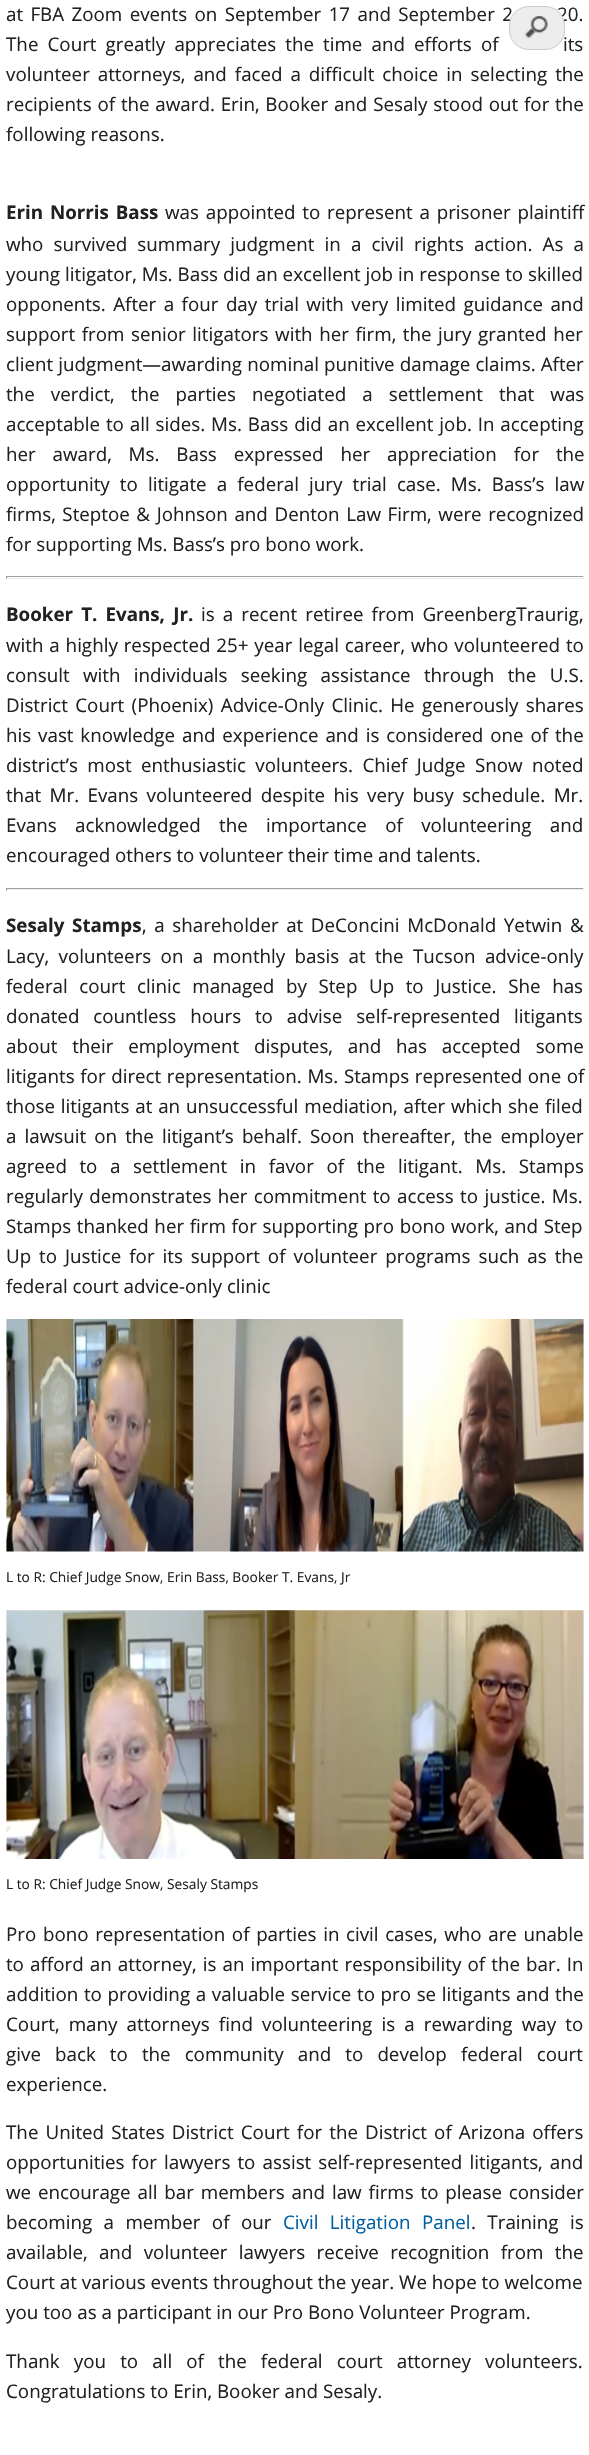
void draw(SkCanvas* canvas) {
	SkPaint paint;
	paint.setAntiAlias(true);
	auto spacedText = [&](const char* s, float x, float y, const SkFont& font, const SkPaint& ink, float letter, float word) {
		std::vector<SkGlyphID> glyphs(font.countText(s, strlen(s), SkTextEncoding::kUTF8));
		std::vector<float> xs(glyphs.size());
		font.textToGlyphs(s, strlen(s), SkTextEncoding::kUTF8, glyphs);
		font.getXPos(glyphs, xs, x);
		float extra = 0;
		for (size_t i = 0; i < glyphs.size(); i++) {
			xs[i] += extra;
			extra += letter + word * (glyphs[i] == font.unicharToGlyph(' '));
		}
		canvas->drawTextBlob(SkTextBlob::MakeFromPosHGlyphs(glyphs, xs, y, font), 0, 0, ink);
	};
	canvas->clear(0xffffffff);
	SkFont f1(fontMgr->matchFamilyStyle("Open Sans", SkFontStyle::Normal()), 18.75);
	f1.setSubpixel(true);
	paint.setColor(0xff212121);
	spacedText("at FBA Zoom events on September 17 and September 2", 6, 21, f1, paint, 0, 2.5);
	spacedText("20.", 557, 21, f1, paint, 0, 2.5);
	spacedText("The Court greatly appreciates the time and efforts of", 6, 51, f1, paint, 0, 4.25);
	spacedText("its", 563, 51, f1, paint, 0, 4.25);
	spacedText("volunteer attorneys, and faced a difficult choice in selecting the", 6, 81, f1, paint, 0, 3.1);
	spacedText("recipients of the award. Erin, Booker and Sesaly stood out for the", 6, 111, f1, paint, 0, 0.9);
	canvas->drawString("following reasons.", 6, 141, f1, paint);
	SkFont f2(fontMgr->matchFamilyStyle("Open Sans", SkFontStyle::Bold()), 18.75);
	f2.setSubpixel(true);
	spacedText("Erin Norris Bass", 6, 219, f2, paint, 0, 2);
	spacedText("was appointed to represent a prisoner plaintiff", 165, 219, f1, paint, 0, 2);
	spacedText("who survived summary judgment in a civil rights action. As a", 6, 251, f1, paint, 0, 5.25);
	spacedText("young litigator, Ms. Bass did an excellent job in response to skilled", 6, 281, f1, paint, 0, 0.1);
	spacedText("opponents. After a four day trial with very limited guidance and", 6, 311, f1, paint, 0, 2.6);
	spacedText("support from senior litigators with her firm, the jury granted her", 6, 341, f1, paint, 0, 1.75);
	spacedText("client judgment—awarding nominal punitive damage claims. After", 6, 371, f1, paint, 0, 0.25);
	spacedText("the verdict, the parties negotiated a settlement that was", 6, 401, f1, paint, 0, 11.25);
	spacedText("acceptable to all sides. Ms. Bass did an excellent job. In accepting", 6, 431, f1, paint, 0, 1);
	spacedText("her award, Ms. Bass expressed her appreciation for the", 6, 461, f1, paint, 0, 12);
	spacedText("opportunity to litigate a federal jury trial case. Ms. Bass’s law", 6, 491, f1, paint, 0, 5.25);
	spacedText("firms, Steptoe & Johnson and Denton Law Firm, were recognized", 6, 521, f1, paint, 0, 1.75);
	canvas->drawString("for supporting Ms. Bass’s pro bono work.", 6, 551, f1, paint);
	paint.setColor(0xff9f9f9f);
	canvas->drawRect(SkRect::MakeXYWH(6, 576, 578, 1), paint);
	paint.setColor(0xffeeeeee);
	canvas->drawRect(SkRect::MakeXYWH(583, 576, 1, 3), paint);
	canvas->drawRect(SkRect::MakeXYWH(6, 578, 578, 1), paint);
	paint.setColor(0xff9f9f9f);
	canvas->drawRect(SkRect::MakeXYWH(6, 576, 1, 3), paint);
	paint.setColor(0xff212121);
	spacedText("Booker T. Evans, Jr.", 6, 621, f2, paint, 0, 3.25);
	spacedText("is a recent retiree from GreenbergTraurig,", 201, 621, f1, paint, 0, 3.25);
	spacedText("with a highly respected 25+ year legal career, who volunteered to", 6, 652, f1, paint, 0, 1);
	spacedText("consult with individuals seeking assistance through the U.S.", 6, 682, f1, paint, 0, 8.5);
	spacedText("District Court (Phoenix) Advice-Only Clinic. He generously shares", 6, 712, f1, paint, 0, 2.5);
	spacedText("his vast knowledge and experience and is considered one of the", 6, 742, f1, paint, 0, 2);
	spacedText("district’s most enthusiastic volunteers. Chief Judge Snow noted", 6, 772, f1, paint, 0, 4.5);
	spacedText("that Mr. Evans volunteered despite his very busy schedule. Mr.", 6, 802, f1, paint, 0, 3.5);
	spacedText("Evans acknowledged the importance of volunteering and", 6, 832, f1, paint, 0, 13.5);
	canvas->drawString("encouraged others to volunteer their time and talents.", 6, 862, f1, paint);
	paint.setColor(0xff9f9f9f);
	canvas->drawRect(SkRect::MakeXYWH(6, 888, 578, 1), paint);
	paint.setColor(0xffeeeeee);
	canvas->drawRect(SkRect::MakeXYWH(583, 888, 1, 3), paint);
	canvas->drawRect(SkRect::MakeXYWH(6, 889, 578, 1), paint);
	paint.setColor(0xff9f9f9f);
	canvas->drawRect(SkRect::MakeXYWH(6, 888, 1, 3), paint);
	paint.setColor(0xff212121);
	spacedText("Sesaly Stamps", 6, 932, f2, paint, 0, 2.75);
	spacedText(", a shareholder at DeConcini McDonald Yetwin &", 142, 932, f1, paint, 0, 2.75);
	spacedText("Lacy, volunteers on a monthly basis at the Tucson advice-only", 6, 963, f1, paint, 0, 4.5);
	spacedText("federal court clinic managed by Step Up to Justice. She has", 6, 993, f1, paint, 0, 6.75);
	spacedText("donated countless hours to advise self-represented litigants", 6, 1023, f1, paint, 0, 9);
	spacedText("about their employment disputes, and has accepted some", 6, 1053, f1, paint, 0, 10);
	spacedText("litigants for direct representation. Ms. Stamps represented one of", 6, 1083, f1, paint, 0, 0.75);
	spacedText("those litigants at an unsuccessful mediation, after which she filed", 6, 1113, f1, paint, 0, 1);
	spacedText("a lawsuit on the litigant’s behalf. Soon thereafter, the employer", 6, 1143, f1, paint, 0, 3.25);
	spacedText("agreed to a settlement in favor of the litigant. Ms. Stamps", 6, 1173, f1, paint, 0, 7.75);
	spacedText("regularly demonstrates her commitment to access to justice. Ms.", 6, 1203, f1, paint, 0, 1.5);
	spacedText("Stamps thanked her firm for supporting pro bono work, and Step", 6, 1233, f1, paint, 0, 0.75);
	spacedText("Up to Justice for its support of volunteer programs such as the", 6, 1263, f1, paint, 0, 3.1);
	canvas->drawString("federal court advice-only clinic", 6, 1293, f1, paint);
	canvas->drawImageRect(SkImages::DeferredFromEncodedData(SkData::MakeFromFileName("img1.png")), SkRect::MakeXYWH(6, 1319, 578, 233), SkSamplingOptions());
	SkFont f3(fontMgr->matchFamilyStyle("Open Sans", SkFontStyle::Normal()), 13.75);
	f3.setSubpixel(true);
	canvas->drawString("L to R: Chief Judge Snow, Erin Bass, Booker T. Evans, Jr", 6, 1582, f3, paint);
	canvas->drawImageRect(SkImages::DeferredFromEncodedData(SkData::MakeFromFileName("img2.png")), SkRect::MakeXYWH(6, 1610, 578, 249), SkSamplingOptions());
	canvas->drawString("L to R: Chief Judge Snow, Sesaly Stamps", 6, 1889, f3, paint);
	spacedText("Pro bono representation of parties in civil cases, who are unable", 6, 1941, f1, paint, 0, 1.75);
	spacedText("to afford an attorney, is an important responsibility of the bar. In", 6, 1971, f1, paint, 0, 1.25);
	spacedText("addition to providing a valuable service to pro se litigants and the", 6, 2001, f1, paint, 0, 0.75);
	spacedText("Court, many attorneys find volunteering is a rewarding way to", 6, 2031, f1, paint, 0, 4.25);
	spacedText("give back to the community and to develop federal court", 6, 2061, f1, paint, 0, 9.25);
	canvas->drawString("experience.", 6, 2091, f1, paint);
	spacedText("The United States District Court for the District of Arizona offers", 6, 2139, f1, paint, 0, 2.25);
	spacedText("opportunities for lawyers to assist self-represented litigants, and", 6, 2169, f1, paint, 0, 2.25);
	spacedText("we encourage all bar members and law firms to please consider", 6, 2199, f1, paint, 0, 2);
	spacedText("becoming a member of our", 6, 2229, f1, paint, 0, 6.5);
	paint.setColor(0xff005ea2);
	spacedText("Civil Litigation Panel", 283, 2229, f1, paint, 0, 6.5);
	paint.setColor(0xff212121);
	spacedText(". Training is", 471, 2229, f1, paint, 0, 6.5);
	spacedText("available, and volunteer lawyers receive recognition from the", 6, 2259, f1, paint, 0, 6.5);
	canvas->drawString("Court at various events throughout the year. We hope to welcome", 6, 2289, f1, paint);
	canvas->drawString("you too as a participant in our Pro Bono Volunteer Program.", 6, 2319, f1, paint);
	spacedText("Thank you to all of the federal court attorney volunteers.", 6, 2368, f1, paint, 0, 9.25);
	canvas->drawString("Congratulations to Erin, Booker and Sesaly.", 6, 2398, f1, paint);
	paint.setColor(0xffededed);
	canvas->drawRoundRect(SkRect::MakeXYWH(509, 6, 56, 44), 20, 20, paint);
	canvas->drawImageRect(SkImages::DeferredFromEncodedData(SkData::MakeFromFileName("img3.png")), SkRect::MakeXYWH(524, 16, 24, 23), SkSamplingOptions());
	paint.setStroke(true);
	paint.setStrokeWidth(1);
	paint.setColor(0xffcccccc);
	canvas->drawRoundRect(SkRect::MakeXYWH(509.5, 6.5, 55, 43), 19.5, 19.5, paint);
}
